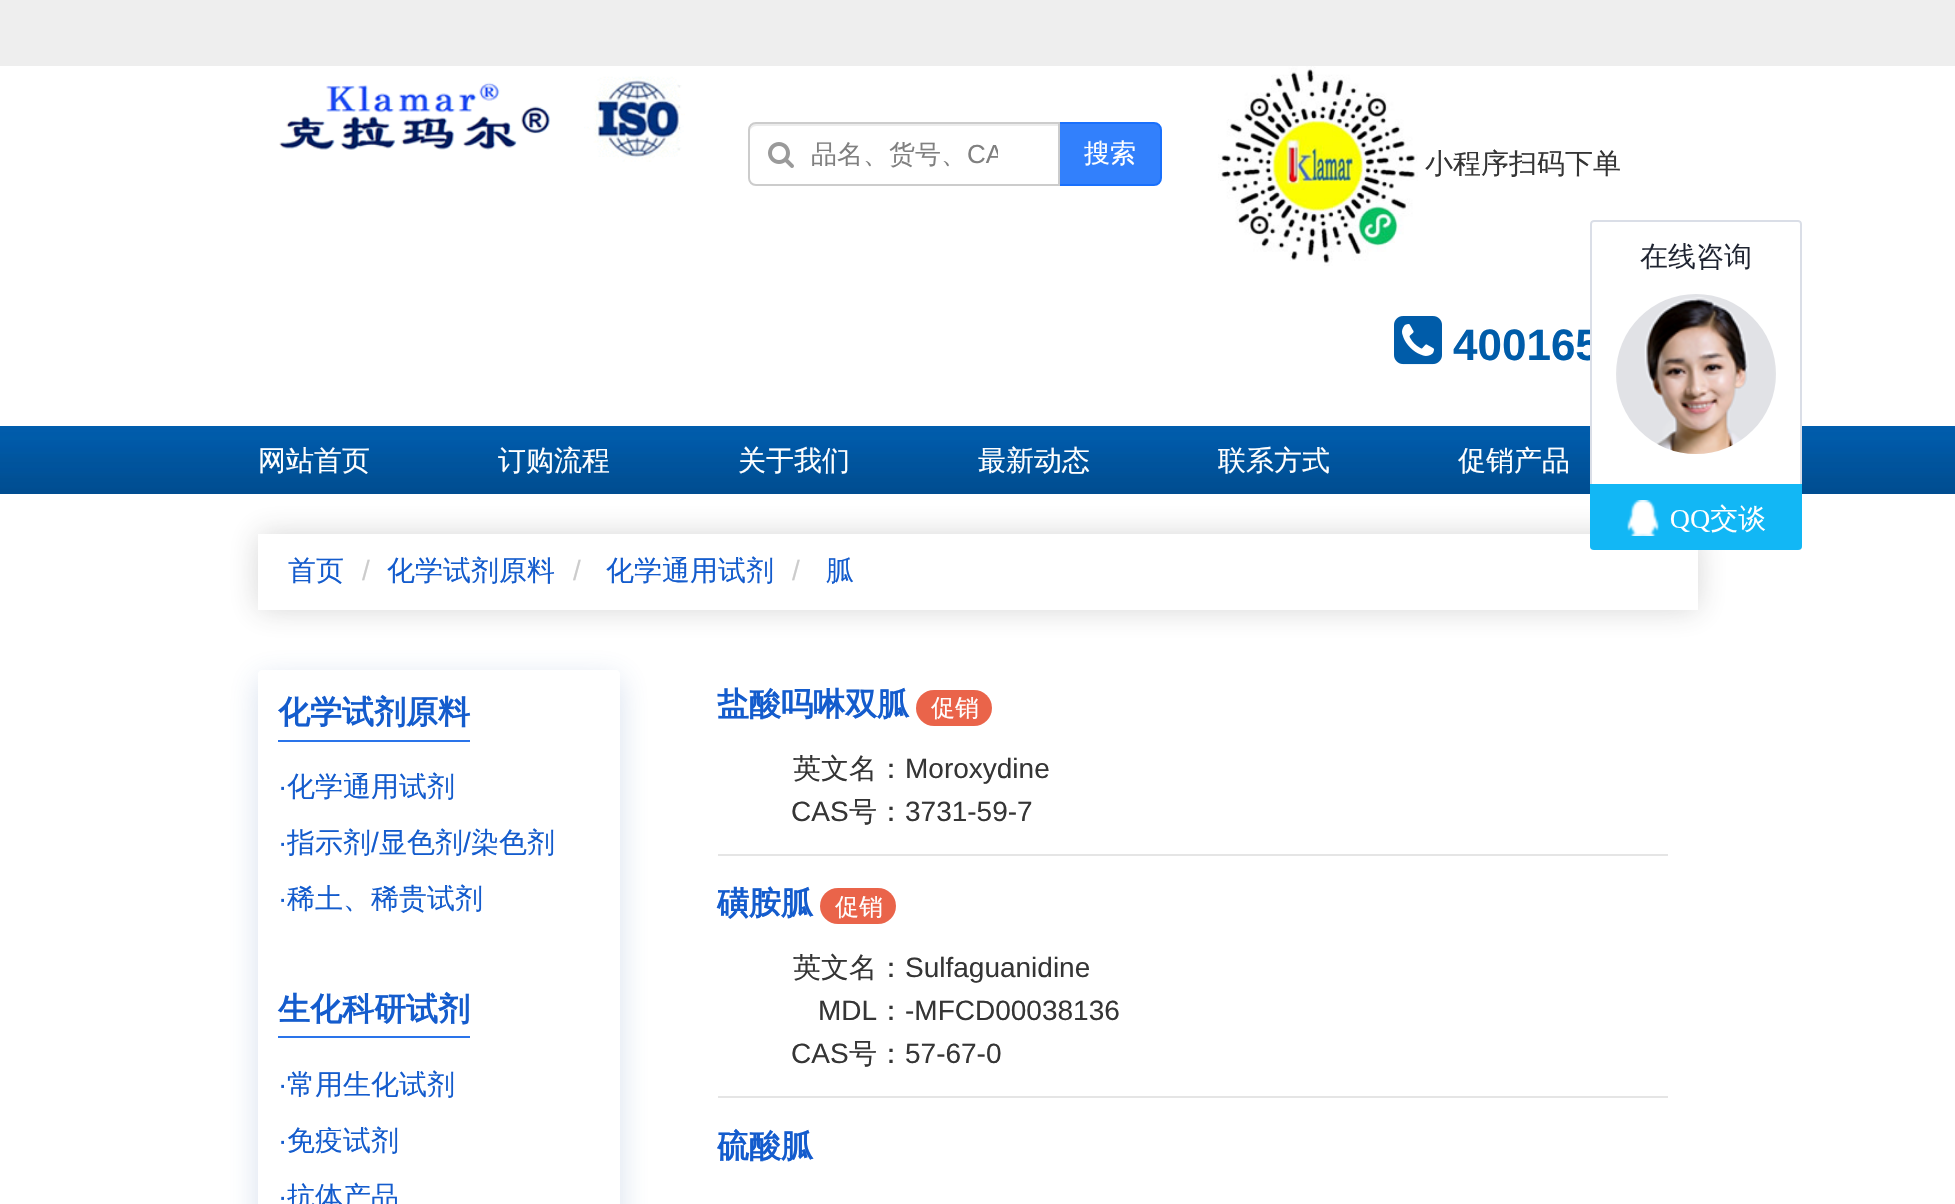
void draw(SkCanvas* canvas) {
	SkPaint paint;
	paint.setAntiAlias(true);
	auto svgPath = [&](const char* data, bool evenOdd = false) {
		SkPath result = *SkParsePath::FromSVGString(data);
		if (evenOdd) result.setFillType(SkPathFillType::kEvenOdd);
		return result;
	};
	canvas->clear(0xffffffff);
	paint.setColor(0xffeeeeee);
	canvas->drawRect(SkRect::MakeXYWH(0, 0, 1955, 66), paint);
	canvas->drawImageRect(SkImages::DeferredFromEncodedData(SkData::MakeFromFileName("img1.png")), SkRect::MakeXYWH(279, 76, 406, 86), SkSamplingOptions());
	paint.setColor(0xff3280fc);
	canvas->drawPath(svgPath("M1059 123H1154C1158 123 1161 126 1161 130V178C1161 182 1158 185 1154 185H1059Z"), paint);
	paint.setStroke(true);
	paint.setStrokeWidth(2);
	paint.setColor(0xff1970fc);
	canvas->drawPath(svgPath("M1059 123H1154C1158 123 1161 126 1161 130V178C1161 182 1158 185 1154 185H1059Z"), paint);
	paint.setStroke(false);
	paint.setColor(0xffffffff);
	canvas->drawPath(svgPath("M756 122H1060V186H756C751.5 186 748 182.5 748 178V130C748 125.5 751.5 122 756 122Z"), paint);
	paint.setColor(0xffececec);
	canvas->drawPath(svgPath("M756 126H1058V124H755C751 125 750 129 750 132C750 129 753 126 756 126Z"), paint);
	paint.setStroke(true);
	paint.setColor(0xffcccccc);
	canvas->drawPath(svgPath("M756 123H1059V185H756C752 185 749 182 749 178V130C749 126 752 123 756 123Z"), paint);
	canvas->drawImageRect(SkImages::DeferredFromEncodedData(SkData::MakeFromFileName("img2.png")), SkRect::MakeXYWH(768, 142, 26, 26), SkSamplingOptions());
	SkFont f1(fontMgr->matchFamilyStyle("WenQuanYi Zen Hei", SkFontStyle(500, SkFontStyle::kNormal_Width, SkFontStyle::kUpright_Slant)), 26);
	f1.setSubpixel(true);
	paint.setStroke(false);
	paint.setColor(0xff808080);
	canvas->drawString("品名、货号、", 811, 163, f1, paint);
	canvas->save();
	canvas->clipRect(SkRect::MakeXYWH(810, 138, 188, 36));
	SkFont f2(fontMgr->matchFamilyStyle("Liberation Sans", SkFontStyle::Normal()), 26);
	f2.setSubpixel(true);
	canvas->drawString("CA", 967, 163, f2, paint);
	canvas->restore();
	paint.setColor(0xffffffff);
	canvas->drawString("搜索", 1084, 162, f1, paint);
	canvas->drawImageRect(SkImages::DeferredFromEncodedData(SkData::MakeFromFileName("img3.png")), SkRect::MakeXYWH(1218, 66, 200, 200), SkSamplingOptions());
	SkFont f3(fontMgr->matchFamilyStyle("WenQuanYi Zen Hei", SkFontStyle(500, SkFontStyle::kNormal_Width, SkFontStyle::kUpright_Slant)), 28);
	f3.setSubpixel(true);
	paint.setColor(0xff353535);
	canvas->drawString("小程序扫码下单", 1425, 173, f3, paint);
	canvas->drawImageRect(SkImages::DeferredFromEncodedData(SkData::MakeFromFileName("img4.png")), SkRect::MakeXYWH(1394, 316, 48, 49), SkSamplingOptions());
	SkFont f4(fontMgr->matchFamilyStyle("Liberation Sans", SkFontStyle::Bold()), 44);
	f4.setSubpixel(true);
	paint.setColor(0xff005ca9);
	canvas->drawString("400165", 1453, 360, f4, paint);
	canvas->drawImageRect(SkImages::DeferredFromEncodedData(SkData::MakeFromFileName("img6.png")), SkRect::MakeXYWH(0, 426, 1955, 68), SkSamplingOptions());
	canvas->save();
	canvas->clipPath(svgPath("M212 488H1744V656H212ZM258 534H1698V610H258Z", true), true);
	paint.setColor(0x33323232);
	paint.setMaskFilter(SkMaskFilter::MakeBlur(kNormal_SkBlurStyle, 15));
	canvas->drawRect(SkRect::MakeXYWH(258, 534, 1440, 76), paint);
	paint.setMaskFilter(nullptr);
	canvas->restore();
	canvas->drawImageRect(SkImages::DeferredFromEncodedData(SkData::MakeFromFileName("img5.png")), SkRect::MakeXYWH(1590, 220, 212, 330), SkSamplingOptions());
	paint.setColor(0xffffffff);
	canvas->drawString("网站首页", 258, 470, f3, paint);
	canvas->drawString("订购流程", 498, 470, f3, paint);
	canvas->drawString("关于我们", 738, 470, f3, paint);
	canvas->drawString("最新动态", 978, 470, f3, paint);
	canvas->drawString("联系方式", 1218, 470, f3, paint);
	canvas->drawString("促销产品", 1458, 470, f3, paint);
	paint.setColor(0xff145ccd);
	canvas->drawString("首页", 288, 580, f3, paint);
	SkFont f5(fontMgr->matchFamilyStyle("Liberation Sans", SkFontStyle::Normal()), 28);
	f5.setSubpixel(true);
	paint.setColor(0xffcccccc);
	canvas->drawString("/", 362, 580, f5, paint);
	paint.setColor(0xff145ccd);
	canvas->drawString("化学试剂原料", 387, 580, f3, paint);
	paint.setColor(0xffcccccc);
	canvas->drawString("/", 573, 580, f5, paint);
	paint.setColor(0xff145ccd);
	canvas->drawString("化学通用试剂", 606, 580, f3, paint);
	paint.setColor(0xffcccccc);
	canvas->drawString("/", 792, 580, f5, paint);
	paint.setColor(0xff145ccd);
	canvas->drawString("胍", 826, 580, f3, paint);
	canvas->save();
	canvas->clipPath(svgPath("M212 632H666V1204H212ZM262 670H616C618 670 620 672 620 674V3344C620 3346 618 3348 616 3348H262C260 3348 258 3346 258 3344V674C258 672 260 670 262 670Z", true), true);
	paint.setColor(0x333763aa);
	paint.setMaskFilter(SkMaskFilter::MakeBlur(kNormal_SkBlurStyle, 15));
	canvas->drawRoundRect(SkRect::MakeXYWH(258, 678, 362, 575), 4, 4, paint);
	paint.setMaskFilter(nullptr);
	canvas->restore();
	SkFont f6(fontMgr->matchFamilyStyle("WenQuanYi Zen Hei", SkFontStyle::Bold()), 32);
	f6.setSubpixel(true);
	paint.setColor(0xff145ccd);
	canvas->drawString("化学试剂原料", 278, 723, f6, paint);
	paint.setColor(0xff2a74ea);
	canvas->drawRect(SkRect::MakeXYWH(278, 740, 192, 2), paint);
	paint.setColor(0xff145ccd);
	canvas->drawString("·", 278, 796, f5, paint);
	canvas->drawString("化学通用试剂", 287, 796, f3, paint);
	canvas->drawString("·", 278, 852, f5, paint);
	canvas->drawString("指示剂", 287, 852, f3, paint);
	canvas->drawString("/", 371, 852, f5, paint);
	canvas->drawString("显色剂", 379, 852, f3, paint);
	canvas->drawString("/", 463, 852, f5, paint);
	canvas->drawString("染色剂", 471, 852, f3, paint);
	canvas->drawString("·", 278, 908, f5, paint);
	canvas->drawString("稀土、稀贵试剂", 287, 908, f3, paint);
	canvas->drawString("生化科研试剂", 278, 1020, f6, paint);
	paint.setColor(0xff2a74ea);
	canvas->drawRect(SkRect::MakeXYWH(278, 1036, 192, 2), paint);
	paint.setColor(0xff145ccd);
	canvas->drawString("·", 278, 1094, f5, paint);
	canvas->drawString("常用生化试剂", 287, 1094, f3, paint);
	canvas->drawString("·", 278, 1150, f5, paint);
	canvas->drawString("免疫试剂", 287, 1150, f3, paint);
	canvas->drawString("·", 278, 1206, f5, paint);
	canvas->drawString("抗体产品", 287, 1206, f3, paint);
	paint.setColor(0xffe5e5e5);
	canvas->drawRect(SkRect::MakeXYWH(718, 854, 950, 2), paint);
	paint.setColor(0xff145ccd);
	canvas->drawString("盐酸吗啉双胍", 717, 715, f6, paint);
	paint.setColor(0xffea644a);
	canvas->drawRoundRect(SkRect::MakeXYWH(916, 690, 76, 36), 18, 18, paint);
	SkFont f7(fontMgr->matchFamilyStyle("WenQuanYi Zen Hei", SkFontStyle(500, SkFontStyle::kNormal_Width, SkFontStyle::kUpright_Slant)), 24);
	f7.setSubpixel(true);
	paint.setColor(0xffffffff);
	canvas->drawString("促销", 931, 716, f7, paint);
	paint.setColor(0xff353535);
	canvas->drawString("英文名：", 793, 778, f3, paint);
	canvas->drawString("Moroxydine", 905, 778, f5, paint);
	canvas->drawString("CAS", 791, 821, f5, paint);
	canvas->drawString("号：", 849, 821, f3, paint);
	canvas->drawString("3731-59-7", 905, 821, f5, paint);
	paint.setColor(0xffe5e5e5);
	canvas->drawRect(SkRect::MakeXYWH(718, 1096, 950, 2), paint);
	paint.setColor(0xff145ccd);
	canvas->drawString("磺胺胍", 717, 914, f6, paint);
	paint.setColor(0xffea644a);
	canvas->drawRoundRect(SkRect::MakeXYWH(820, 888, 76, 36), 18, 18, paint);
	paint.setColor(0xffffffff);
	canvas->drawString("促销", 835, 915, f7, paint);
	paint.setColor(0xff353535);
	canvas->drawString("英文名：", 793, 977, f3, paint);
	canvas->drawString("Sulfaguanidine", 905, 977, f5, paint);
	canvas->drawString("MDL", 818, 1020, f5, paint);
	canvas->drawString("：", 877, 1020, f3, paint);
	canvas->drawString("-MFCD00038136", 905, 1020, f5, paint);
	canvas->drawString("CAS", 791, 1063, f5, paint);
	canvas->drawString("号：", 849, 1063, f3, paint);
	canvas->drawString("57-67-0", 905, 1063, f5, paint);
	paint.setColor(0xff145ccd);
	canvas->drawString("硫酸胍", 717, 1157, f6, paint);
}
